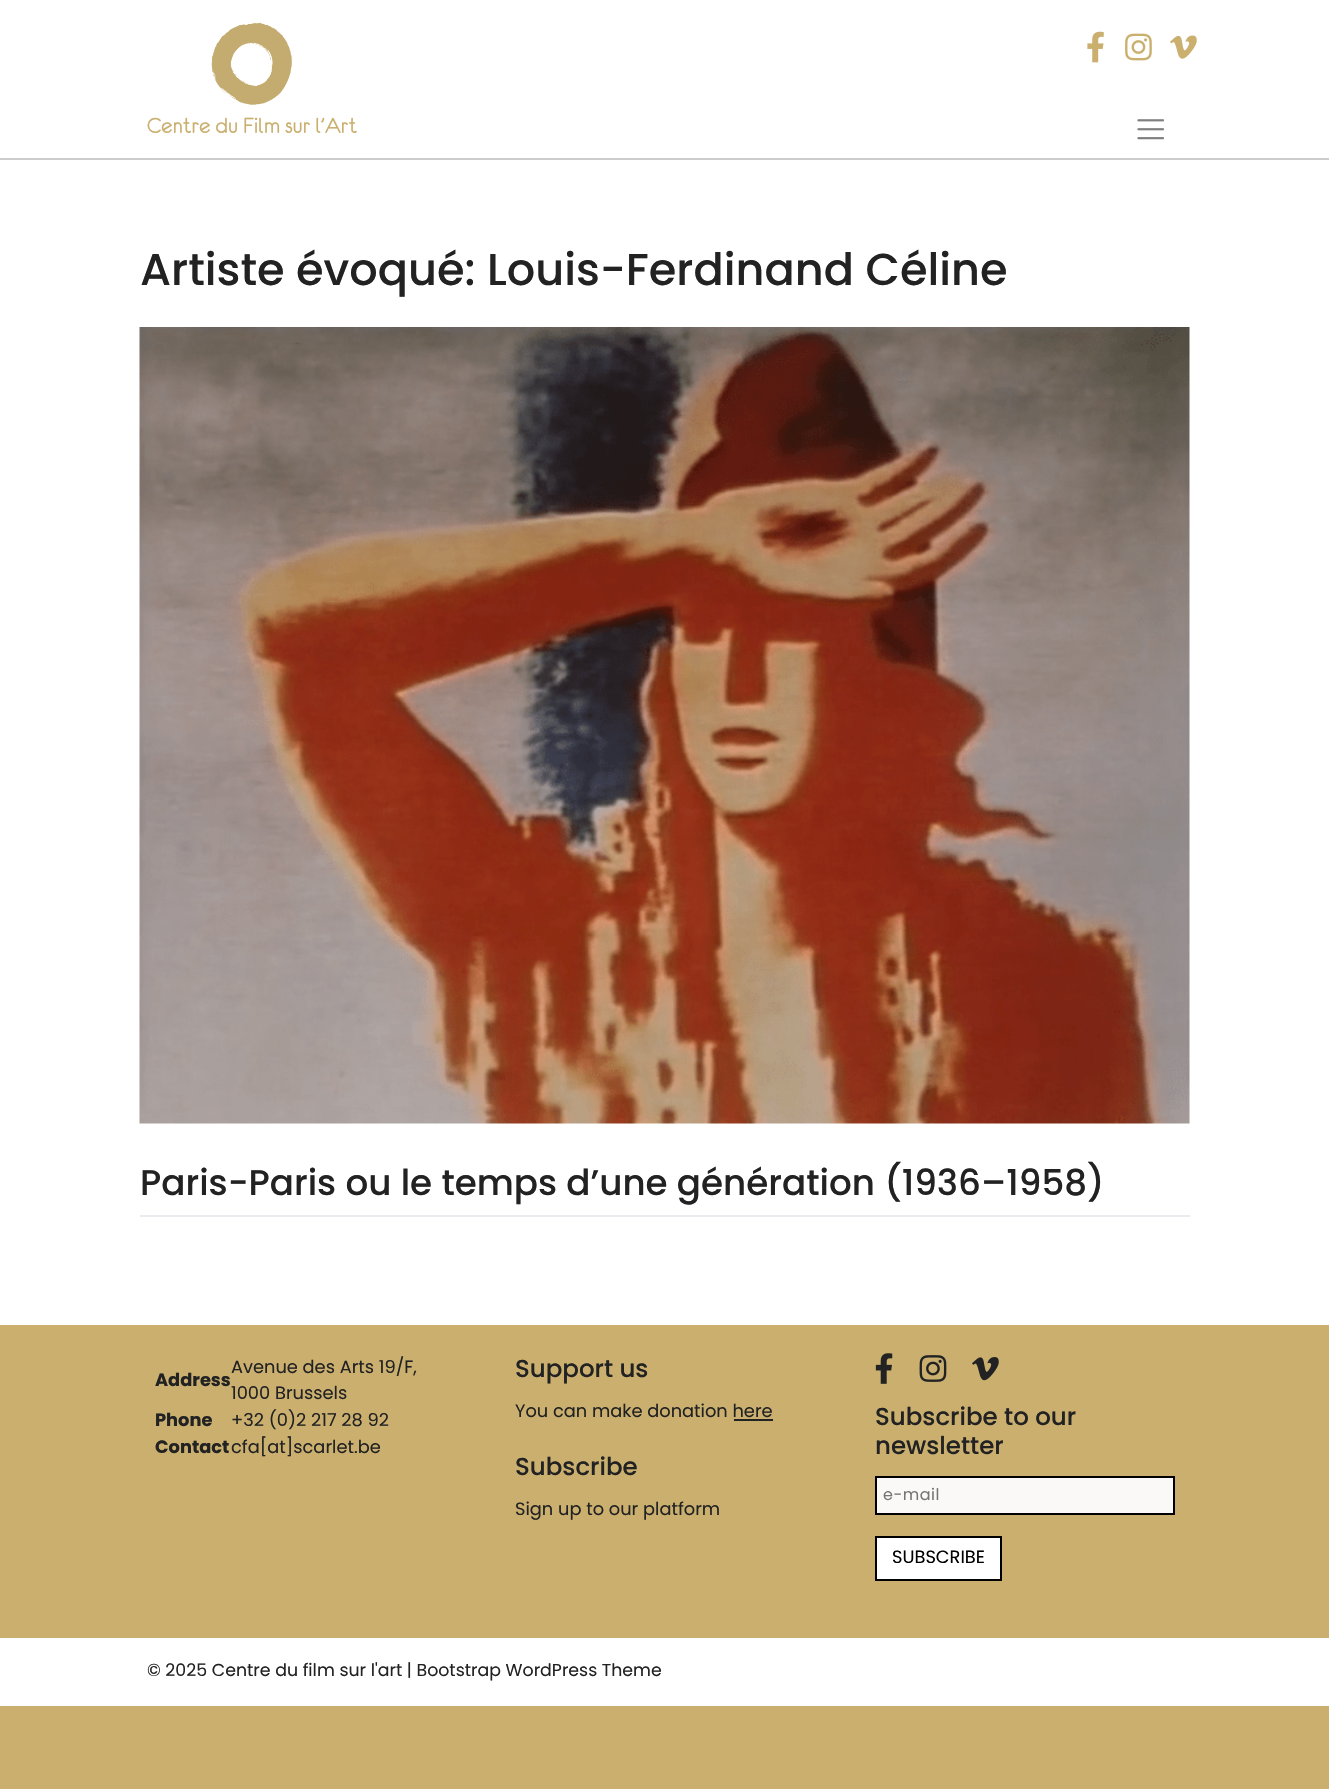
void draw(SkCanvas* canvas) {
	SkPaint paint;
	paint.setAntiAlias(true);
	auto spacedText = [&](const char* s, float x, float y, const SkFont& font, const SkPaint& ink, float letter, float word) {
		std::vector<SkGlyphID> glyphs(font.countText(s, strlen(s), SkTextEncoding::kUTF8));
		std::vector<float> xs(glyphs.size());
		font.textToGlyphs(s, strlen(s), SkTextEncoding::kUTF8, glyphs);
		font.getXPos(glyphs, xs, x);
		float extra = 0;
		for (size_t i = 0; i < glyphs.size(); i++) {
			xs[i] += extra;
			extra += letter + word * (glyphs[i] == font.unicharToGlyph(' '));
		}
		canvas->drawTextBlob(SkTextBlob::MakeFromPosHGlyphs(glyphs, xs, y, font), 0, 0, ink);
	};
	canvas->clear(0xffcaaf6f);
	paint.setColor(0xffffffff);
	canvas->drawRect(SkRect::MakeXYWH(0, 0, 1329, 158), paint);
	paint.setColor(0xffcccccc);
	canvas->drawRect(SkRect::MakeXYWH(0, 158, 1329, 2), paint);
	canvas->drawImageRect(SkImages::DeferredFromEncodedData(SkData::MakeFromFileName("img1.png")), SkRect::MakeXYWH(1087, 31, 17, 32), SkSamplingOptions());
	canvas->drawImageRect(SkImages::DeferredFromEncodedData(SkData::MakeFromFileName("img2.png")), SkRect::MakeXYWH(1125, 33, 27, 28), SkSamplingOptions());
	canvas->drawImageRect(SkImages::DeferredFromEncodedData(SkData::MakeFromFileName("img3.png")), SkRect::MakeXYWH(1170, 35, 27, 24), SkSamplingOptions());
	canvas->drawImageRect(SkImages::DeferredFromEncodedData(SkData::MakeFromFileName("img4.png")), SkRect::MakeXYWH(211, 22, 82, 83), SkSamplingOptions());
	SkFont f1(fontMgr->matchFamilyStyle("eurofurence", SkFontStyle::Normal()), 24.5);
	f1.setSubpixel(true);
	paint.setColor(0xffcaaf6f);
	canvas->drawString("Centre du Film sur l’Art", 147, 133, f1, paint);
	canvas->drawImageRect(SkImages::DeferredFromEncodedData(SkData::MakeFromFileName("img5.png")), SkRect::MakeXYWH(1137, 119, 28, 21), SkSamplingOptions());
	paint.setColor(0xffffffff);
	canvas->drawRect(SkRect::MakeXYWH(0, 160, 1329, 1165), paint);
	SkFont f2(fontMgr->matchFamilyStyle("Poppins", SkFontStyle(500, SkFontStyle::kNormal_Width, SkFontStyle::kUpright_Slant)), 44.6);
	f2.setSubpixel(true);
	paint.setColor(0xff222222);
	canvas->drawString("Artiste évoqué: Louis-Ferdinand Céline", 140, 285, f2, paint);
	canvas->drawImageRect(SkImages::DeferredFromEncodedData(SkData::MakeFromFileName("img6.png")), SkRect::MakeXYWH(139, 327, 1051, 797), SkSamplingOptions());
	paint.setColor(0xffeaecef);
	canvas->drawRect(SkRect::MakeXYWH(140, 1215, 1050, 2), paint);
	SkFont f3(fontMgr->matchFamilyStyle("Poppins", SkFontStyle(500, SkFontStyle::kNormal_Width, SkFontStyle::kUpright_Slant)), 35.7);
	f3.setSubpixel(true);
	paint.setColor(0xff222222);
	canvas->drawString("Paris-Paris ou le temps d’une génération (1936 – 1958)", 140, 1195, f3, paint);
	SkFont f4(fontMgr->matchFamilyStyle("Poppins", SkFontStyle::Bold()), 17.8);
	f4.setSubpixel(true);
	canvas->drawString("Address", 155, 1386, f4, paint);
	SkFont f5(fontMgr->matchFamilyStyle("Poppins", SkFontStyle::Normal()), 17.8);
	f5.setSubpixel(true);
	canvas->drawString("Avenue des Arts 19/F,", 231, 1373, f5, paint);
	canvas->drawString("1000 Brussels", 231, 1399, f5, paint);
	canvas->drawString("Phone", 155, 1426, f4, paint);
	canvas->drawString("+32 (0)2 217 28 92", 231, 1426, f5, paint);
	canvas->drawString("Contact", 155, 1453, f4, paint);
	canvas->drawString("cfa[at]scarlet.be", 231, 1453, f5, paint);
	SkFont f6(fontMgr->matchFamilyStyle("Poppins", SkFontStyle(500, SkFontStyle::kNormal_Width, SkFontStyle::kUpright_Slant)), 24.5);
	f6.setSubpixel(true);
	canvas->drawString("Support us", 515, 1377, f6, paint);
	canvas->drawString("You can make donation here", 515, 1417, f5, paint);
	canvas->drawRect(SkRect::MakeXYWH(734, 1419, 39, 2), paint);
	canvas->drawString("Subscribe", 515, 1475, f6, paint);
	canvas->drawString("Sign up to our platform", 515, 1515, f5, paint);
	canvas->drawImageRect(SkImages::DeferredFromEncodedData(SkData::MakeFromFileName("img7.png")), SkRect::MakeXYWH(875, 1353, 18, 31), SkSamplingOptions());
	canvas->drawImageRect(SkImages::DeferredFromEncodedData(SkData::MakeFromFileName("img8.png")), SkRect::MakeXYWH(919, 1355, 28, 27), SkSamplingOptions());
	canvas->drawImageRect(SkImages::DeferredFromEncodedData(SkData::MakeFromFileName("img9.png")), SkRect::MakeXYWH(972, 1357, 27, 24), SkSamplingOptions());
	canvas->drawString("Subscribe to our", 875, 1425, f6, paint);
	canvas->drawString("newsletter", 875, 1454, f6, paint);
	paint.setColor(0xfffaf9f8);
	canvas->drawRect(SkRect::MakeXYWH(876, 1477, 298, 37), paint);
	paint.setStroke(true);
	paint.setStrokeWidth(2);
	paint.setColor(0xff000000);
	canvas->drawRect(SkRect::MakeXYWH(876, 1477, 298, 37), paint);
	SkFont f7(fontMgr->matchFamilyStyle("Poppins", SkFontStyle::Normal()), 16);
	f7.setSubpixel(true);
	paint.setStroke(false);
	paint.setColor(0xff757575);
	spacedText("e-mail", 883, 1500, f7, paint, 0.5, 0);
	paint.setColor(0xffffffff);
	canvas->drawRect(SkRect::MakeXYWH(876, 1537, 125, 43), paint);
	paint.setStroke(true);
	paint.setColor(0xff000000);
	canvas->drawRect(SkRect::MakeXYWH(876, 1537, 125, 43), paint);
	paint.setStroke(false);
	canvas->drawString("SUBSCRIBE", 892, 1563, f5, paint);
	paint.setColor(0xffffffff);
	canvas->drawRect(SkRect::MakeXYWH(0, 1638, 1329, 68), paint);
	SkFont f8(fontMgr->matchFamilyStyle("Poppins", SkFontStyle::Normal()), 17.35);
	f8.setSubpixel(true);
	paint.setColor(0xff222222);
	canvas->drawString("© 2025 Centre du film sur l'art | Bootstrap WordPress Theme", 147, 1676, f8, paint);
}
